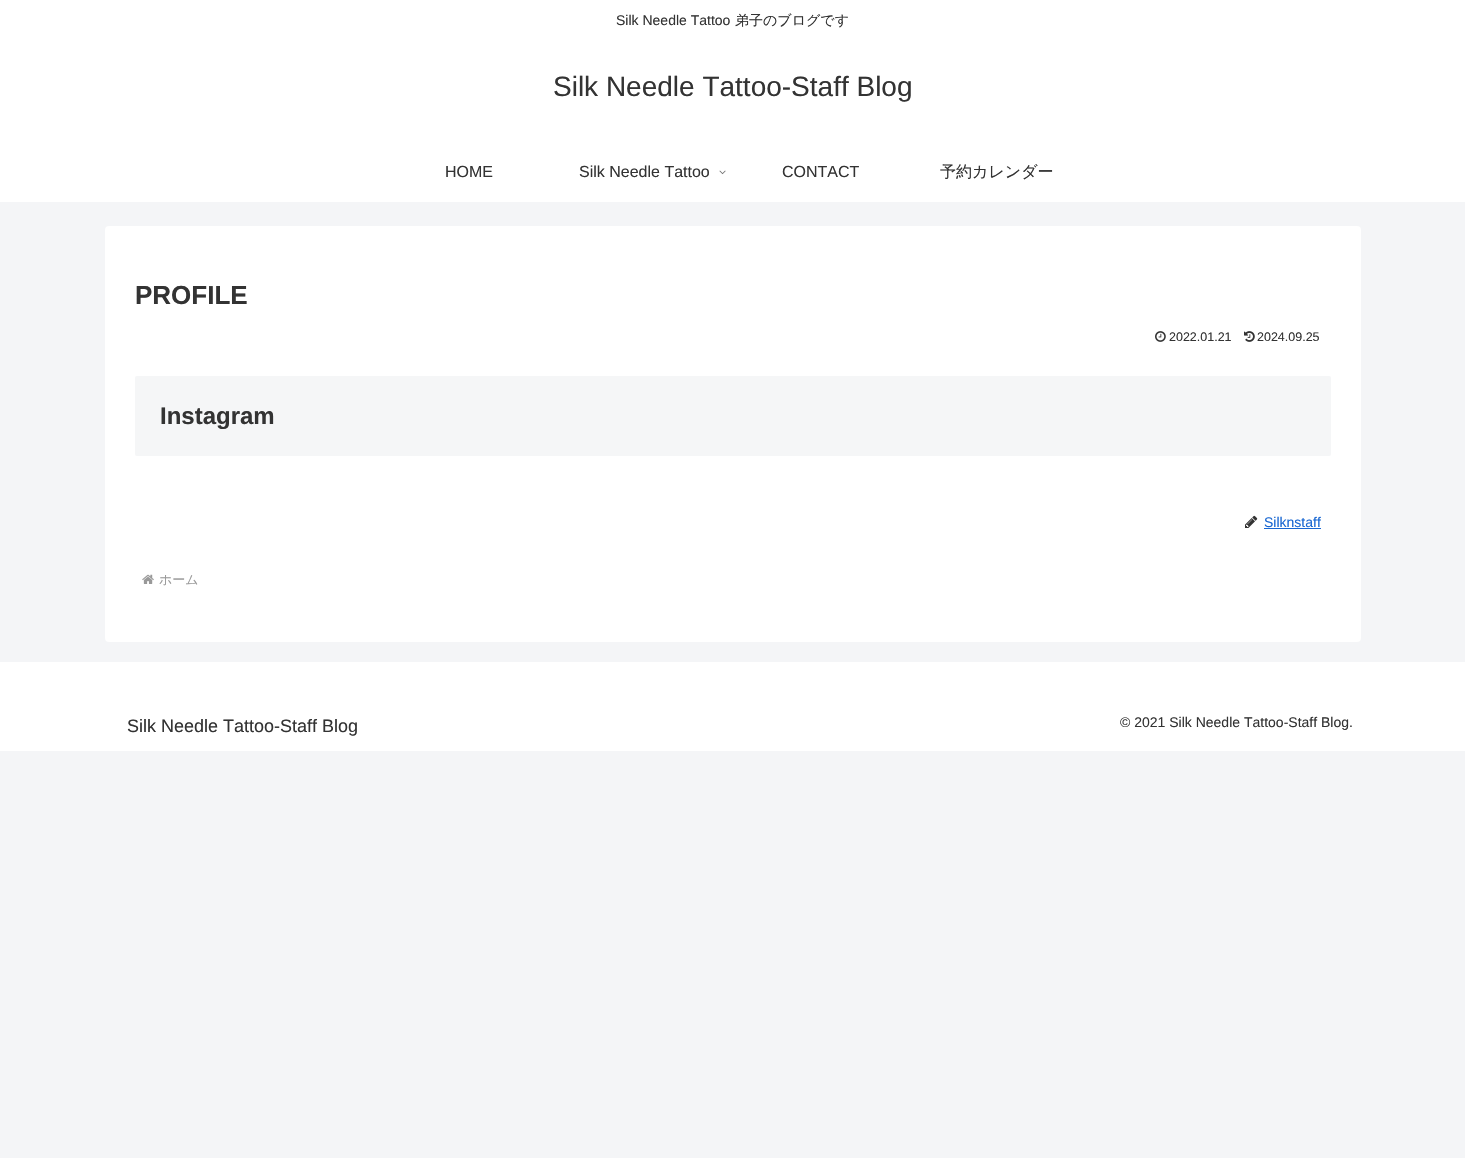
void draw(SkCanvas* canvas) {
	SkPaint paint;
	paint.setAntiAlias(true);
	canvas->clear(0xfff4f5f7);
	paint.setColor(0xffffffff);
	canvas->drawRect(SkRect::MakeXYWH(0, 0, 1465, 202), paint);
	SkFont f1(fontMgr->matchFamilyStyle("Liberation Sans", SkFontStyle::Normal()), 14);
	f1.setSubpixel(true);
	paint.setColor(0xff333333);
	canvas->drawString("Silk Needle Tattoo", 616, 25, f1, paint);
	SkFont f2(fontMgr->matchFamilyStyle("WenQuanYi Zen Hei", SkFontStyle(500, SkFontStyle::kNormal_Width, SkFontStyle::kUpright_Slant)), 14);
	f2.setSubpixel(true);
	canvas->drawString("弟子のブログです", 735, 25, f2, paint);
	SkFont f3(fontMgr->matchFamilyStyle("Liberation Sans", SkFontStyle::Normal()), 28);
	f3.setSubpixel(true);
	canvas->drawString("Silk Needle Tattoo-Staff Blog", 553, 96, f3, paint);
	SkFont f4(fontMgr->matchFamilyStyle("Liberation Sans", SkFontStyle::Normal()), 16);
	f4.setSubpixel(true);
	canvas->drawString("HOME", 445, 177, f4, paint);
	canvas->drawString("Silk Needle Tattoo", 579, 177, f4, paint);
	canvas->drawImageRect(SkImages::DeferredFromEncodedData(SkData::MakeFromFileName("img1.png")), SkRect::MakeXYWH(719, 170, 7, 5), SkSamplingOptions());
	canvas->drawString("CONTACT", 782, 177, f4, paint);
	SkFont f5(fontMgr->matchFamilyStyle("WenQuanYi Zen Hei", SkFontStyle(500, SkFontStyle::kNormal_Width, SkFontStyle::kUpright_Slant)), 16);
	f5.setSubpixel(true);
	canvas->drawString("予約カレンダー", 940, 177, f5, paint);
	paint.setColor(0xffffffff);
	canvas->drawRoundRect(SkRect::MakeXYWH(105, 226, 1256, 416), 4, 4, paint);
	SkFont f6(fontMgr->matchFamilyStyle("Liberation Sans", SkFontStyle::Bold()), 26);
	f6.setSubpixel(true);
	paint.setColor(0xff333333);
	canvas->drawString("PROFILE", 135, 304, f6, paint);
	canvas->drawImageRect(SkImages::DeferredFromEncodedData(SkData::MakeFromFileName("img2.png")), SkRect::MakeXYWH(1155, 331, 11, 11), SkSamplingOptions());
	SkFont f7(fontMgr->matchFamilyStyle("Liberation Sans", SkFontStyle::Normal()), 12.5);
	f7.setSubpixel(true);
	canvas->drawString("2022.01.21", 1169, 341, f7, paint);
	canvas->drawImageRect(SkImages::DeferredFromEncodedData(SkData::MakeFromFileName("img3.png")), SkRect::MakeXYWH(1244, 331, 11, 11), SkSamplingOptions());
	canvas->drawString("2024.09.25", 1257, 341, f7, paint);
	paint.setColor(0xfff5f6f7);
	canvas->drawRoundRect(SkRect::MakeXYWH(135, 376, 1196, 80), 2, 2, paint);
	SkFont f8(fontMgr->matchFamilyStyle("Liberation Sans", SkFontStyle::Bold()), 24);
	f8.setSubpixel(true);
	paint.setColor(0xff333333);
	canvas->drawString("Instagram", 160, 424, f8, paint);
	canvas->drawImageRect(SkImages::DeferredFromEncodedData(SkData::MakeFromFileName("img4.png")), SkRect::MakeXYWH(1245, 515, 13, 13), SkSamplingOptions());
	paint.setColor(0xff1967d2);
	canvas->drawString("Silknstaff", 1264, 527, f1, paint);
	canvas->drawRect(SkRect::MakeXYWH(1264, 528, 57, 1), paint);
	canvas->drawImageRect(SkImages::DeferredFromEncodedData(SkData::MakeFromFileName("img5.png")), SkRect::MakeXYWH(142, 574, 12, 10), SkSamplingOptions());
	SkFont f9(fontMgr->matchFamilyStyle("WenQuanYi Zen Hei", SkFontStyle(500, SkFontStyle::kNormal_Width, SkFontStyle::kUpright_Slant)), 13);
	f9.setSubpixel(true);
	paint.setColor(0xff999999);
	canvas->drawString("ホーム", 159, 584, f9, paint);
	paint.setColor(0xffffffff);
	canvas->drawRect(SkRect::MakeXYWH(0, 662, 1465, 89), paint);
	SkFont f10(fontMgr->matchFamilyStyle("Liberation Sans", SkFontStyle::Normal()), 18);
	f10.setSubpixel(true);
	paint.setColor(0xff333333);
	canvas->drawString("Silk Needle Tattoo-Staff Blog", 127, 732, f10, paint);
	canvas->drawString("© 2021 Silk Needle Tattoo-Staff Blog.", 1120, 727, f1, paint);
}
